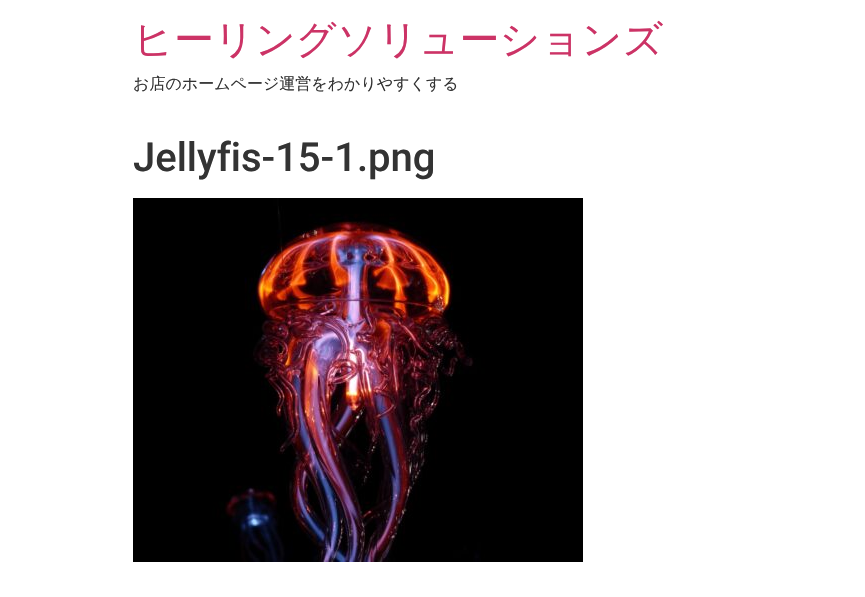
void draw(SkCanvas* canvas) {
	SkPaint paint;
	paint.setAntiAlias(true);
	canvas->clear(0xffffffff);
	SkFont f1(fontMgr->matchFamilyStyle("WenQuanYi Zen Hei", SkFontStyle(500, SkFontStyle::kNormal_Width, SkFontStyle::kUpright_Slant)), 40);
	f1.setSubpixel(true);
	paint.setColor(0xffcc3366);
	canvas->drawString("ヒーリングソリューションズ", 133, 53, f1, paint);
	SkFont f2(fontMgr->matchFamilyStyle("WenQuanYi Zen Hei", SkFontStyle(500, SkFontStyle::kNormal_Width, SkFontStyle::kUpright_Slant)), 16);
	f2.setSubpixel(true);
	paint.setColor(0xff333333);
	canvas->drawString("お店のホームページ運営をわかりやすくする", 133, 89, f2, paint);
	SkFont f3(fontMgr->matchFamilyStyle("Roboto", SkFontStyle(500, SkFontStyle::kNormal_Width, SkFontStyle::kUpright_Slant)), 40);
	f3.setSubpixel(true);
	canvas->drawString("Jellyfis-15-1.png", 133, 171, f3, paint);
	canvas->drawImageRect(SkImages::DeferredFromEncodedData(SkData::MakeFromFileName("img1.png")), SkRect::MakeXYWH(133, 198, 450, 364), SkSamplingOptions());
}
